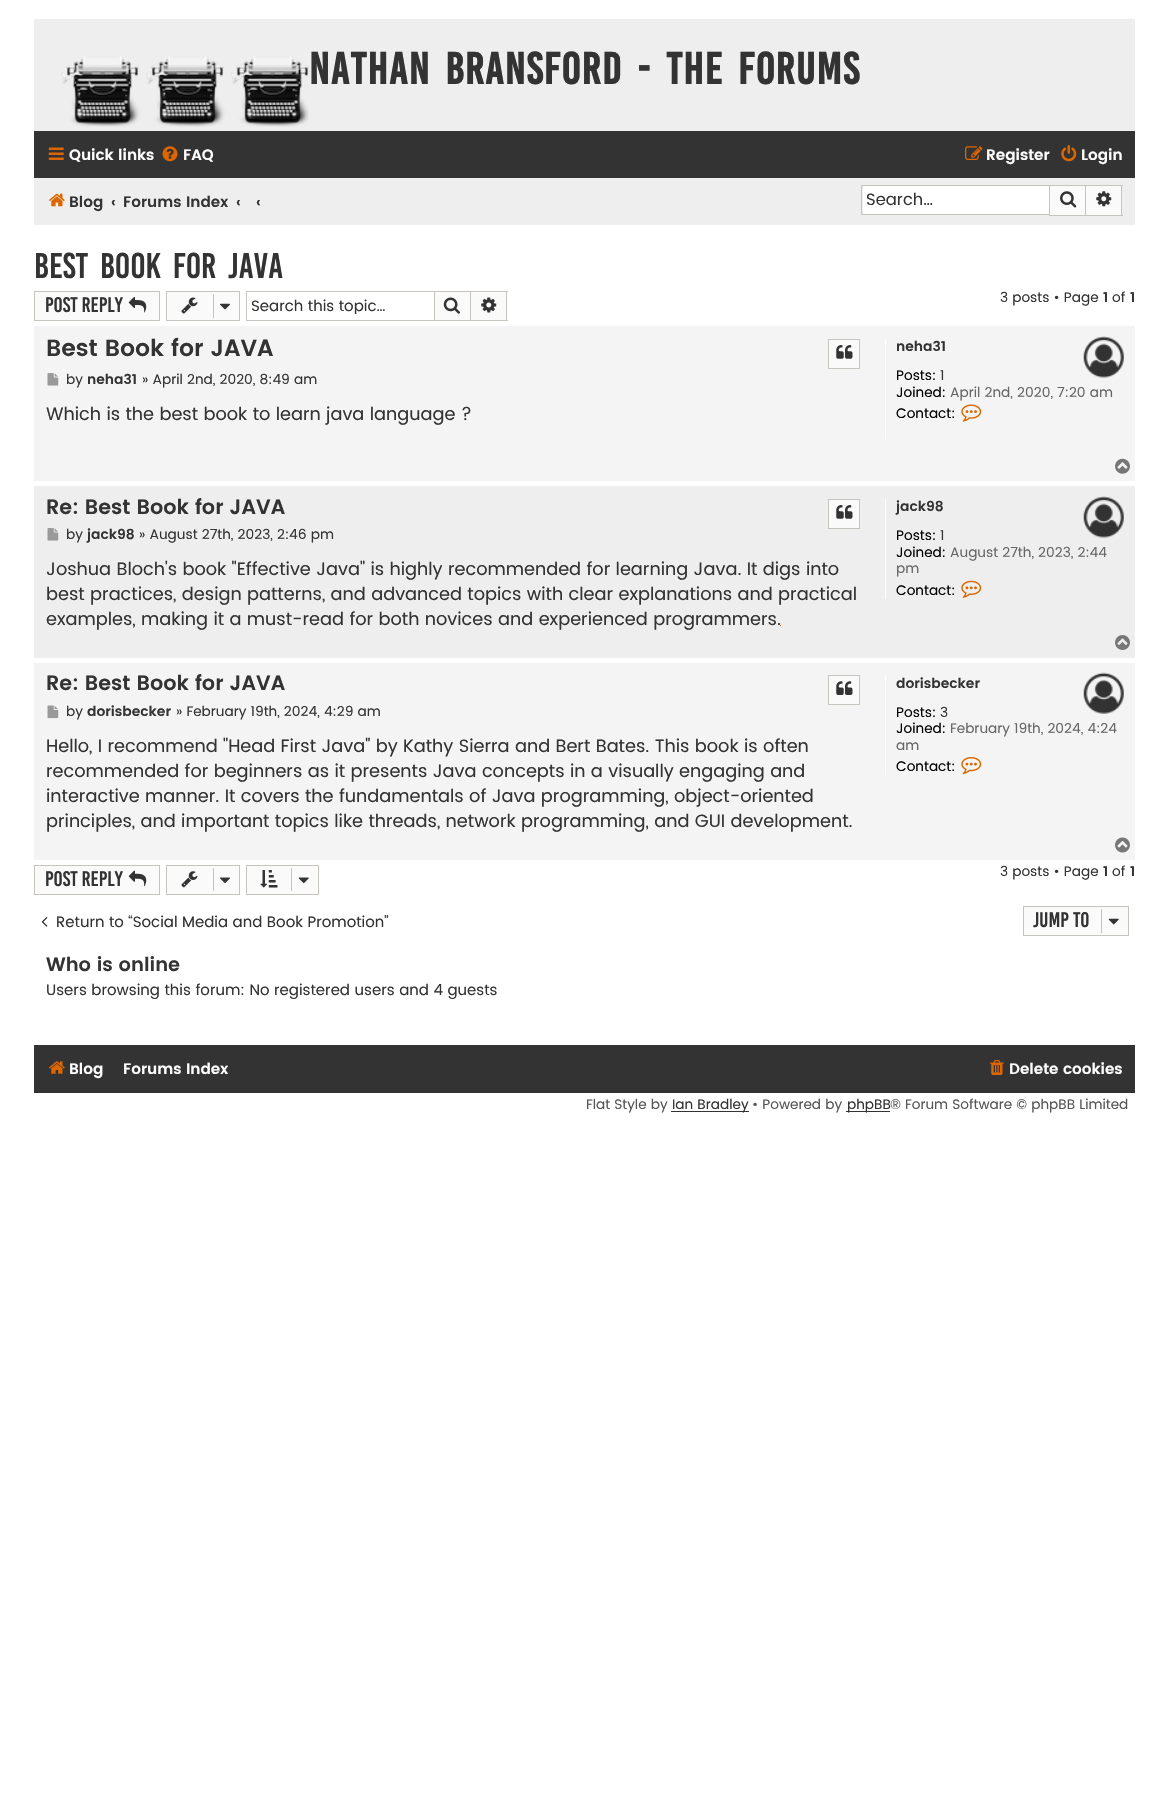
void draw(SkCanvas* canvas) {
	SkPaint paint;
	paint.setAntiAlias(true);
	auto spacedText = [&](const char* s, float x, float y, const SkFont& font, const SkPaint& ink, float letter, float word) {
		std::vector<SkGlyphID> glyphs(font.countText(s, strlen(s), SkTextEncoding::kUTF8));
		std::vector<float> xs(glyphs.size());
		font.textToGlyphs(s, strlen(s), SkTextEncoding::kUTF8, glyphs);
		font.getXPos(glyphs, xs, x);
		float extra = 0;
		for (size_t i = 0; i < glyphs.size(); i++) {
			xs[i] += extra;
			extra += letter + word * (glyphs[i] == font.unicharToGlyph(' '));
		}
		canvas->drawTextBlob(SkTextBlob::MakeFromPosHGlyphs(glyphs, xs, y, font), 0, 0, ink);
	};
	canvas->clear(0xffffffff);
	paint.setColor(0xffeeeeee);
	canvas->drawRect(SkRect::MakeXYWH(34, 19, 1101, 112), paint);
	canvas->drawImageRect(SkImages::DeferredFromEncodedData(SkData::MakeFromFileName("img1.png")), SkRect::MakeXYWH(61, 56, 248, 71), SkSamplingOptions());
	SkFont f1(fontMgr->matchFamilyStyle("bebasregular", SkFontStyle::Bold()), 34.4);
	f1.setSubpixel(true);
	paint.setColor(0xff333333);
	spacedText("Nathan Bransford - The Forums", 309, 84, f1, paint, 1.25, 5);
	canvas->drawRect(SkRect::MakeXYWH(34, 131, 1101, 47), paint);
	canvas->drawImageRect(SkImages::DeferredFromEncodedData(SkData::MakeFromFileName("img2.png")), SkRect::MakeXYWH(48, 147, 16, 13), SkSamplingOptions());
	SkFont f2(fontMgr->matchFamilyStyle("Poppins", SkFontStyle(600, SkFontStyle::kNormal_Width, SkFontStyle::kUpright_Slant)), 15.1);
	f2.setSubpixel(true);
	paint.setColor(0xffffffff);
	canvas->drawString("Quick links", 69, 160, f2, paint);
	canvas->drawImageRect(SkImages::DeferredFromEncodedData(SkData::MakeFromFileName("img3.png")), SkRect::MakeXYWH(162, 146, 16, 16), SkSamplingOptions());
	canvas->drawString("FAQ", 183, 160, f2, paint);
	canvas->drawImageRect(SkImages::DeferredFromEncodedData(SkData::MakeFromFileName("img4.png")), SkRect::MakeXYWH(965, 146, 18, 14), SkSamplingOptions());
	canvas->drawString("Register", 986, 160, f2, paint);
	canvas->drawImageRect(SkImages::DeferredFromEncodedData(SkData::MakeFromFileName("img5.png")), SkRect::MakeXYWH(1061, 145, 16, 17), SkSamplingOptions());
	canvas->drawString("Login", 1081, 160, f2, paint);
	paint.setColor(0xffeeeeee);
	canvas->drawRect(SkRect::MakeXYWH(34, 178, 1101, 47), paint);
	canvas->drawImageRect(SkImages::DeferredFromEncodedData(SkData::MakeFromFileName("img6.png")), SkRect::MakeXYWH(49, 193, 16, 14), SkSamplingOptions());
	paint.setColor(0xff333333);
	canvas->drawString("Blog", 69, 207, f2, paint);
	canvas->drawString("‹", 111, 207, f2, paint);
	canvas->drawString("Forums Index", 123, 207, f2, paint);
	canvas->drawString("‹", 236, 207, f2, paint);
	canvas->drawString("‹", 256, 207, f2, paint);
	paint.setColor(0xffffffff);
	canvas->drawRect(SkRect::MakeXYWH(863, 186, 186, 28), paint);
	paint.setColor(0xffc7c3bf);
	canvas->drawRect(SkRect::MakeXYWH(861, 185, 188, 1), paint);
	canvas->drawRect(SkRect::MakeXYWH(861, 214, 188, 1), paint);
	canvas->drawRect(SkRect::MakeXYWH(861, 185, 1, 30), paint);
	SkFont f3(fontMgr->matchFamilyStyle("Poppins", SkFontStyle::Normal()), 16.5);
	f3.setSubpixel(true);
	paint.setColor(0xff333333);
	canvas->drawString("Search…", 866, 205, f3, paint);
	paint.setColor(0xfffafafa);
	canvas->drawRect(SkRect::MakeXYWH(1049.5, 185.5, 36, 30), paint);
	paint.setStroke(true);
	paint.setStrokeWidth(1);
	paint.setColor(0xffc7c3bf);
	canvas->drawRect(SkRect::MakeXYWH(1049.5, 185.5, 36, 30), paint);
	canvas->drawImageRect(SkImages::DeferredFromEncodedData(SkData::MakeFromFileName("img7.png")), SkRect::MakeXYWH(1060, 191, 17, 17), SkSamplingOptions());
	paint.setStroke(false);
	paint.setColor(0xfffafafa);
	canvas->drawRect(SkRect::MakeXYWH(1086, 186, 35, 29), paint);
	paint.setColor(0xffc7c3bf);
	canvas->drawRect(SkRect::MakeXYWH(1086, 185, 37, 1), paint);
	canvas->drawRect(SkRect::MakeXYWH(1121, 185, 1, 31), paint);
	canvas->drawRect(SkRect::MakeXYWH(1086, 215, 37, 1), paint);
	canvas->drawImageRect(SkImages::DeferredFromEncodedData(SkData::MakeFromFileName("img8.png")), SkRect::MakeXYWH(1096, 191, 16, 16), SkSamplingOptions());
	SkFont f4(fontMgr->matchFamilyStyle("bebasregular", SkFontStyle::Normal()), 27.5);
	f4.setSubpixel(true);
	paint.setColor(0xff333333);
	spacedText("Best Book for JAVA", 34, 278, f4, paint, 0, 5);
	paint.setColor(0xfffafafa);
	canvas->drawRect(SkRect::MakeXYWH(34.5, 291.5, 125, 29), paint);
	paint.setStroke(true);
	paint.setColor(0xffc7c3bf);
	canvas->drawRect(SkRect::MakeXYWH(34.5, 291.5, 125, 29), paint);
	SkFont f5(fontMgr->matchFamilyStyle("bebasregular", SkFontStyle::Normal()), 16.25);
	f5.setSubpixel(true);
	paint.setStroke(false);
	paint.setColor(0xff333333);
	canvas->drawString("Post Reply", 45, 312, f5, paint);
	canvas->drawImageRect(SkImages::DeferredFromEncodedData(SkData::MakeFromFileName("img9.png")), SkRect::MakeXYWH(128, 296, 19, 17), SkSamplingOptions());
	paint.setColor(0xfffafafa);
	canvas->drawRect(SkRect::MakeXYWH(166.5, 291.5, 73, 29), paint);
	paint.setStroke(true);
	paint.setColor(0xffc7c3bf);
	canvas->drawRect(SkRect::MakeXYWH(166.5, 291.5, 73, 29), paint);
	canvas->drawImageRect(SkImages::DeferredFromEncodedData(SkData::MakeFromFileName("img10.png")), SkRect::MakeXYWH(181, 297, 17, 17), SkSamplingOptions());
	paint.setStroke(false);
	canvas->drawRect(SkRect::MakeXYWH(213, 294, 1, 24), paint);
	canvas->drawImageRect(SkImages::DeferredFromEncodedData(SkData::MakeFromFileName("img11.png")), SkRect::MakeXYWH(220, 303, 10, 7), SkSamplingOptions());
	canvas->drawRect(SkRect::MakeXYWH(246, 291, 188, 1), paint);
	canvas->drawRect(SkRect::MakeXYWH(246, 320, 188, 1), paint);
	canvas->drawRect(SkRect::MakeXYWH(246, 291, 1, 30), paint);
	canvas->save();
	canvas->clipRect(SkRect::MakeXYWH(251, 299, 174, 15));
	SkFont f6(fontMgr->matchFamilyStyle("Poppins", SkFontStyle::Normal()), 15.1);
	f6.setSubpixel(true);
	paint.setColor(0xff333333);
	canvas->drawString("Search this topic…", 251, 311, f6, paint);
	canvas->restore();
	paint.setColor(0xfffafafa);
	canvas->drawRect(SkRect::MakeXYWH(434.5, 291.5, 36, 29), paint);
	paint.setStroke(true);
	paint.setColor(0xffc7c3bf);
	canvas->drawRect(SkRect::MakeXYWH(434.5, 291.5, 36, 29), paint);
	canvas->drawImageRect(SkImages::DeferredFromEncodedData(SkData::MakeFromFileName("img12.png")), SkRect::MakeXYWH(443, 297, 17, 17), SkSamplingOptions());
	paint.setStroke(false);
	paint.setColor(0xfffafafa);
	canvas->drawRect(SkRect::MakeXYWH(471, 293, 35, 27), paint);
	paint.setColor(0xffc7c3bf);
	canvas->drawRect(SkRect::MakeXYWH(471, 291, 37, 1), paint);
	canvas->drawRect(SkRect::MakeXYWH(506, 291, 1, 30), paint);
	canvas->drawRect(SkRect::MakeXYWH(471, 320, 37, 1), paint);
	canvas->drawImageRect(SkImages::DeferredFromEncodedData(SkData::MakeFromFileName("img13.png")), SkRect::MakeXYWH(481, 297, 16, 16), SkSamplingOptions());
	SkFont f7(fontMgr->matchFamilyStyle("Poppins", SkFontStyle::Normal()), 13.75);
	f7.setSubpixel(true);
	paint.setColor(0xff333333);
	canvas->drawString("3 posts • Page", 1000, 302, f7, paint);
	SkFont f8(fontMgr->matchFamilyStyle("Poppins", SkFontStyle(600, SkFontStyle::kNormal_Width, SkFontStyle::kUpright_Slant)), 13.75);
	f8.setSubpixel(true);
	canvas->drawString("1", 1103, 302, f8, paint);
	canvas->drawString("of", 1112, 302, f7, paint);
	canvas->drawString("1", 1130, 302, f8, paint);
	paint.setColor(0xfff4f4f4);
	canvas->drawRect(SkRect::MakeXYWH(34, 326, 1101, 155), paint);
	canvas->drawImageRect(SkImages::DeferredFromEncodedData(SkData::MakeFromFileName("img14.png")), SkRect::MakeXYWH(1083, 336, 41, 42), SkSamplingOptions());
	SkFont f9(fontMgr->matchFamilyStyle("Poppins", SkFontStyle(600, SkFontStyle::kNormal_Width, SkFontStyle::kUpright_Slant)), 23.4);
	f9.setSubpixel(true);
	paint.setColor(0xff333333);
	canvas->drawString("Best Book for JAVA", 46, 356, f9, paint);
	paint.setColor(0xfffafafa);
	canvas->drawRect(SkRect::MakeXYWH(828.5, 339.5, 31, 29), paint);
	paint.setStroke(true);
	paint.setColor(0xffc7c3bf);
	canvas->drawRect(SkRect::MakeXYWH(828.5, 339.5, 31, 29), paint);
	canvas->drawImageRect(SkImages::DeferredFromEncodedData(SkData::MakeFromFileName("img15.png")), SkRect::MakeXYWH(836, 345, 17, 14), SkSamplingOptions());
	canvas->drawImageRect(SkImages::DeferredFromEncodedData(SkData::MakeFromFileName("img16.png")), SkRect::MakeXYWH(47, 373, 12, 13), SkSamplingOptions());
	paint.setStroke(false);
	paint.setColor(0xff333333);
	canvas->drawString("by", 66, 384, f7, paint);
	canvas->drawString("neha31", 87, 384, f8, paint);
	canvas->drawString("» April 2nd, 2020, 8:49 am", 142, 384, f7, paint);
	SkFont f10(fontMgr->matchFamilyStyle("Poppins", SkFontStyle::Normal()), 17.9);
	f10.setSubpixel(true);
	canvas->drawString("Which is the best book to learn java language ?", 46, 420, f10, paint);
	paint.setColor(0xffffffff);
	canvas->drawRect(SkRect::MakeXYWH(885, 339, 1, 100), paint);
	paint.setColor(0xff333333);
	canvas->drawString("neha31", 896, 351, f8, paint);
	paint.setColor(0xff000000);
	canvas->drawString("Posts:", 896, 380, f7, paint);
	paint.setColor(0xff333333);
	canvas->drawString("1", 940, 380, f7, paint);
	paint.setColor(0xff000000);
	canvas->drawString("Joined:", 896, 397, f7, paint);
	paint.setColor(0xff666666);
	canvas->drawString("April 2nd, 2020, 7:20 am", 950, 397, f7, paint);
	paint.setColor(0xff000000);
	canvas->drawString("Contact:", 896, 418, f7, paint);
	canvas->drawImageRect(SkImages::DeferredFromEncodedData(SkData::MakeFromFileName("img17.png")), SkRect::MakeXYWH(961, 404, 21, 18), SkSamplingOptions());
	canvas->drawImageRect(SkImages::DeferredFromEncodedData(SkData::MakeFromFileName("img18.png")), SkRect::MakeXYWH(1115, 458, 15, 16), SkSamplingOptions());
	paint.setColor(0xffeeeeee);
	canvas->drawRect(SkRect::MakeXYWH(34, 486, 1101, 172), paint);
	canvas->drawImageRect(SkImages::DeferredFromEncodedData(SkData::MakeFromFileName("img19.png")), SkRect::MakeXYWH(1083, 496, 41, 42), SkSamplingOptions());
	SkFont f11(fontMgr->matchFamilyStyle("Poppins", SkFontStyle(600, SkFontStyle::kNormal_Width, SkFontStyle::kUpright_Slant)), 20.6);
	f11.setSubpixel(true);
	paint.setColor(0xff333333);
	canvas->drawString("Re: Best Book for JAVA", 46, 514, f11, paint);
	paint.setColor(0xfffafafa);
	canvas->drawRect(SkRect::MakeXYWH(828.5, 499.5, 31, 29), paint);
	paint.setStroke(true);
	paint.setColor(0xffc7c3bf);
	canvas->drawRect(SkRect::MakeXYWH(828.5, 499.5, 31, 29), paint);
	canvas->drawImageRect(SkImages::DeferredFromEncodedData(SkData::MakeFromFileName("img15.png")), SkRect::MakeXYWH(836, 505, 17, 14), SkSamplingOptions());
	canvas->drawImageRect(SkImages::DeferredFromEncodedData(SkData::MakeFromFileName("img20.png")), SkRect::MakeXYWH(47, 528, 12, 13), SkSamplingOptions());
	paint.setStroke(false);
	paint.setColor(0xff333333);
	canvas->drawString("by", 66, 539, f7, paint);
	canvas->drawString("jack98", 87, 539, f8, paint);
	canvas->drawString("» August 27th, 2023, 2:46 pm", 139, 539, f7, paint);
	canvas->drawString("Joshua Bloch's book \"Effective Java\" is highly recommended for learning Java. It digs into", 46, 575, f10, paint);
	canvas->drawString("best practices, design patterns, and advanced topics with clear explanations and practical", 46, 600, f10, paint);
	canvas->drawString("examples, making it a must-read for both novices and experienced programmers.", 46, 625, f10, paint);
	paint.setColor(0xffdd6600);
	canvas->drawRect(SkRect::MakeXYWH(780, 625, 1, 1), paint);
	paint.setColor(0xffffffff);
	canvas->drawRect(SkRect::MakeXYWH(885, 499, 1, 100), paint);
	paint.setColor(0xff333333);
	canvas->drawString("jack98", 896, 511, f8, paint);
	paint.setColor(0xff000000);
	canvas->drawString("Posts:", 896, 540, f7, paint);
	paint.setColor(0xff333333);
	canvas->drawString("1", 940, 540, f7, paint);
	paint.setColor(0xff000000);
	canvas->drawString("Joined:", 896, 557, f7, paint);
	paint.setColor(0xff666666);
	canvas->drawString("August 27th, 2023, 2:44", 950, 557, f7, paint);
	canvas->drawString("pm", 896, 573, f7, paint);
	paint.setColor(0xff000000);
	canvas->drawString("Contact:", 896, 595, f7, paint);
	canvas->drawImageRect(SkImages::DeferredFromEncodedData(SkData::MakeFromFileName("img21.png")), SkRect::MakeXYWH(961, 580, 21, 18), SkSamplingOptions());
	canvas->drawImageRect(SkImages::DeferredFromEncodedData(SkData::MakeFromFileName("img22.png")), SkRect::MakeXYWH(1115, 635, 15, 15), SkSamplingOptions());
	paint.setColor(0xfff4f4f4);
	canvas->drawRect(SkRect::MakeXYWH(34, 663, 1101, 197), paint);
	canvas->drawImageRect(SkImages::DeferredFromEncodedData(SkData::MakeFromFileName("img23.png")), SkRect::MakeXYWH(1083, 672, 41, 42), SkSamplingOptions());
	paint.setColor(0xff333333);
	canvas->drawString("Re: Best Book for JAVA", 46, 690, f11, paint);
	paint.setColor(0xfffafafa);
	canvas->drawRect(SkRect::MakeXYWH(828.5, 675.5, 31, 29), paint);
	paint.setStroke(true);
	paint.setColor(0xffc7c3bf);
	canvas->drawRect(SkRect::MakeXYWH(828.5, 675.5, 31, 29), paint);
	canvas->drawImageRect(SkImages::DeferredFromEncodedData(SkData::MakeFromFileName("img24.png")), SkRect::MakeXYWH(836, 681, 17, 14), SkSamplingOptions());
	canvas->drawImageRect(SkImages::DeferredFromEncodedData(SkData::MakeFromFileName("img25.png")), SkRect::MakeXYWH(47, 705, 12, 14), SkSamplingOptions());
	paint.setStroke(false);
	paint.setColor(0xff333333);
	canvas->drawString("by", 66, 716, f7, paint);
	canvas->drawString("dorisbecker", 87, 716, f8, paint);
	canvas->drawString("» February 19th, 2024, 4:29 am", 176, 716, f7, paint);
	canvas->drawString("Hello, I recommend \"Head First Java\" by Kathy Sierra and Bert Bates. This book is often", 46, 752, f10, paint);
	canvas->drawString("recommended for beginners as it presents Java concepts in a visually engaging and", 46, 777, f10, paint);
	canvas->drawString("interactive manner. It covers the fundamentals of Java programming, object-oriented", 46, 802, f10, paint);
	canvas->drawString("principles, and important topics like threads, network programming, and GUI development.", 46, 827, f10, paint);
	paint.setColor(0xffffffff);
	canvas->drawRect(SkRect::MakeXYWH(885, 675, 1, 100), paint);
	paint.setColor(0xff333333);
	canvas->drawString("dorisbecker", 896, 688, f8, paint);
	paint.setColor(0xff000000);
	canvas->drawString("Posts:", 896, 717, f7, paint);
	paint.setColor(0xff333333);
	canvas->drawString("3", 940, 717, f7, paint);
	paint.setColor(0xff000000);
	canvas->drawString("Joined:", 896, 733, f7, paint);
	paint.setColor(0xff666666);
	canvas->drawString("February 19th, 2024, 4:24", 950, 733, f7, paint);
	canvas->drawString("am", 896, 750, f7, paint);
	paint.setColor(0xff000000);
	canvas->drawString("Contact:", 896, 771, f7, paint);
	canvas->drawImageRect(SkImages::DeferredFromEncodedData(SkData::MakeFromFileName("img26.png")), SkRect::MakeXYWH(961, 757, 21, 18), SkSamplingOptions());
	canvas->drawImageRect(SkImages::DeferredFromEncodedData(SkData::MakeFromFileName("img27.png")), SkRect::MakeXYWH(1115, 837, 15, 16), SkSamplingOptions());
	paint.setColor(0xfffafafa);
	canvas->drawRect(SkRect::MakeXYWH(34.5, 865.5, 125, 29), paint);
	paint.setStroke(true);
	paint.setColor(0xffc7c3bf);
	canvas->drawRect(SkRect::MakeXYWH(34.5, 865.5, 125, 29), paint);
	paint.setStroke(false);
	paint.setColor(0xff333333);
	canvas->drawString("Post Reply", 45, 886, f5, paint);
	canvas->drawImageRect(SkImages::DeferredFromEncodedData(SkData::MakeFromFileName("img28.png")), SkRect::MakeXYWH(128, 870, 19, 17), SkSamplingOptions());
	paint.setColor(0xfffafafa);
	canvas->drawRect(SkRect::MakeXYWH(166.5, 865.5, 73, 29), paint);
	paint.setStroke(true);
	paint.setColor(0xffc7c3bf);
	canvas->drawRect(SkRect::MakeXYWH(166.5, 865.5, 73, 29), paint);
	canvas->drawImageRect(SkImages::DeferredFromEncodedData(SkData::MakeFromFileName("img29.png")), SkRect::MakeXYWH(181, 871, 17, 17), SkSamplingOptions());
	paint.setStroke(false);
	canvas->drawRect(SkRect::MakeXYWH(213, 868, 1, 23), paint);
	canvas->drawImageRect(SkImages::DeferredFromEncodedData(SkData::MakeFromFileName("img30.png")), SkRect::MakeXYWH(220, 877, 10, 6), SkSamplingOptions());
	paint.setColor(0xfffafafa);
	canvas->drawRect(SkRect::MakeXYWH(246.5, 865.5, 72, 29), paint);
	paint.setStroke(true);
	paint.setColor(0xffc7c3bf);
	canvas->drawRect(SkRect::MakeXYWH(246.5, 865.5, 72, 29), paint);
	canvas->drawImageRect(SkImages::DeferredFromEncodedData(SkData::MakeFromFileName("img31.png")), SkRect::MakeXYWH(260, 870, 18, 18), SkSamplingOptions());
	paint.setStroke(false);
	canvas->drawRect(SkRect::MakeXYWH(291, 868, 1, 23), paint);
	canvas->drawImageRect(SkImages::DeferredFromEncodedData(SkData::MakeFromFileName("img32.png")), SkRect::MakeXYWH(298, 877, 11, 7), SkSamplingOptions());
	paint.setColor(0xff333333);
	canvas->drawString("3 posts • Page", 1000, 876, f7, paint);
	canvas->drawString("1", 1103, 876, f8, paint);
	canvas->drawString("of", 1112, 876, f7, paint);
	canvas->drawString("1", 1130, 876, f8, paint);
	canvas->drawImageRect(SkImages::DeferredFromEncodedData(SkData::MakeFromFileName("img33.png")), SkRect::MakeXYWH(41, 917, 7, 10), SkSamplingOptions());
	canvas->drawString("Return to “Social Media and Book Promotion”", 56, 927, f6, paint);
	paint.setColor(0xfffafafa);
	canvas->drawRect(SkRect::MakeXYWH(1023.5, 906.5, 105, 29), paint);
	paint.setStroke(true);
	paint.setColor(0xffc7c3bf);
	canvas->drawRect(SkRect::MakeXYWH(1023.5, 906.5, 105, 29), paint);
	paint.setStroke(false);
	paint.setColor(0xff333333);
	canvas->drawString("Jump to", 1033, 927, f5, paint);
	paint.setColor(0xffc7c3bf);
	canvas->drawRect(SkRect::MakeXYWH(1101, 909, 1, 24), paint);
	canvas->drawImageRect(SkImages::DeferredFromEncodedData(SkData::MakeFromFileName("img34.png")), SkRect::MakeXYWH(1108, 918, 11, 7), SkSamplingOptions());
	SkFont f12(fontMgr->matchFamilyStyle("Poppins", SkFontStyle(600, SkFontStyle::kNormal_Width, SkFontStyle::kUpright_Slant)), 19.25);
	f12.setSubpixel(true);
	paint.setColor(0xff333333);
	canvas->drawString("Who is online", 46, 971, f12, paint);
	canvas->drawString("Users browsing this forum: No registered users and 4 guests", 46, 995, f6, paint);
	canvas->drawRect(SkRect::MakeXYWH(34, 1045, 1101, 48), paint);
	canvas->drawImageRect(SkImages::DeferredFromEncodedData(SkData::MakeFromFileName("img35.png")), SkRect::MakeXYWH(49, 1061, 16, 13), SkSamplingOptions());
	paint.setColor(0xffffffff);
	canvas->drawString("Blog", 69, 1074, f2, paint);
	canvas->drawString("Forums Index", 123, 1074, f2, paint);
	canvas->drawImageRect(SkImages::DeferredFromEncodedData(SkData::MakeFromFileName("img36.png")), SkRect::MakeXYWH(990, 1060, 14, 15), SkSamplingOptions());
	canvas->drawString("Delete cookies", 1009, 1074, f2, paint);
	paint.setColor(0xff555555);
	canvas->drawString("Flat Style by", 586, 1109, f7, paint);
	paint.setColor(0xff333333);
	canvas->drawRect(SkRect::MakeXYWH(671, 1111, 78, 1), paint);
	canvas->drawString("Ian Bradley", 672, 1109, f7, paint);
	paint.setColor(0xff555555);
	canvas->drawString("• Powered by", 752, 1109, f7, paint);
	paint.setColor(0xff333333);
	canvas->drawRect(SkRect::MakeXYWH(846, 1111, 44, 1), paint);
	canvas->drawString("phpBB", 847, 1109, f7, paint);
	paint.setColor(0xff555555);
	canvas->drawString("® Forum Software © phpBB Limited", 890, 1109, f7, paint);
}
